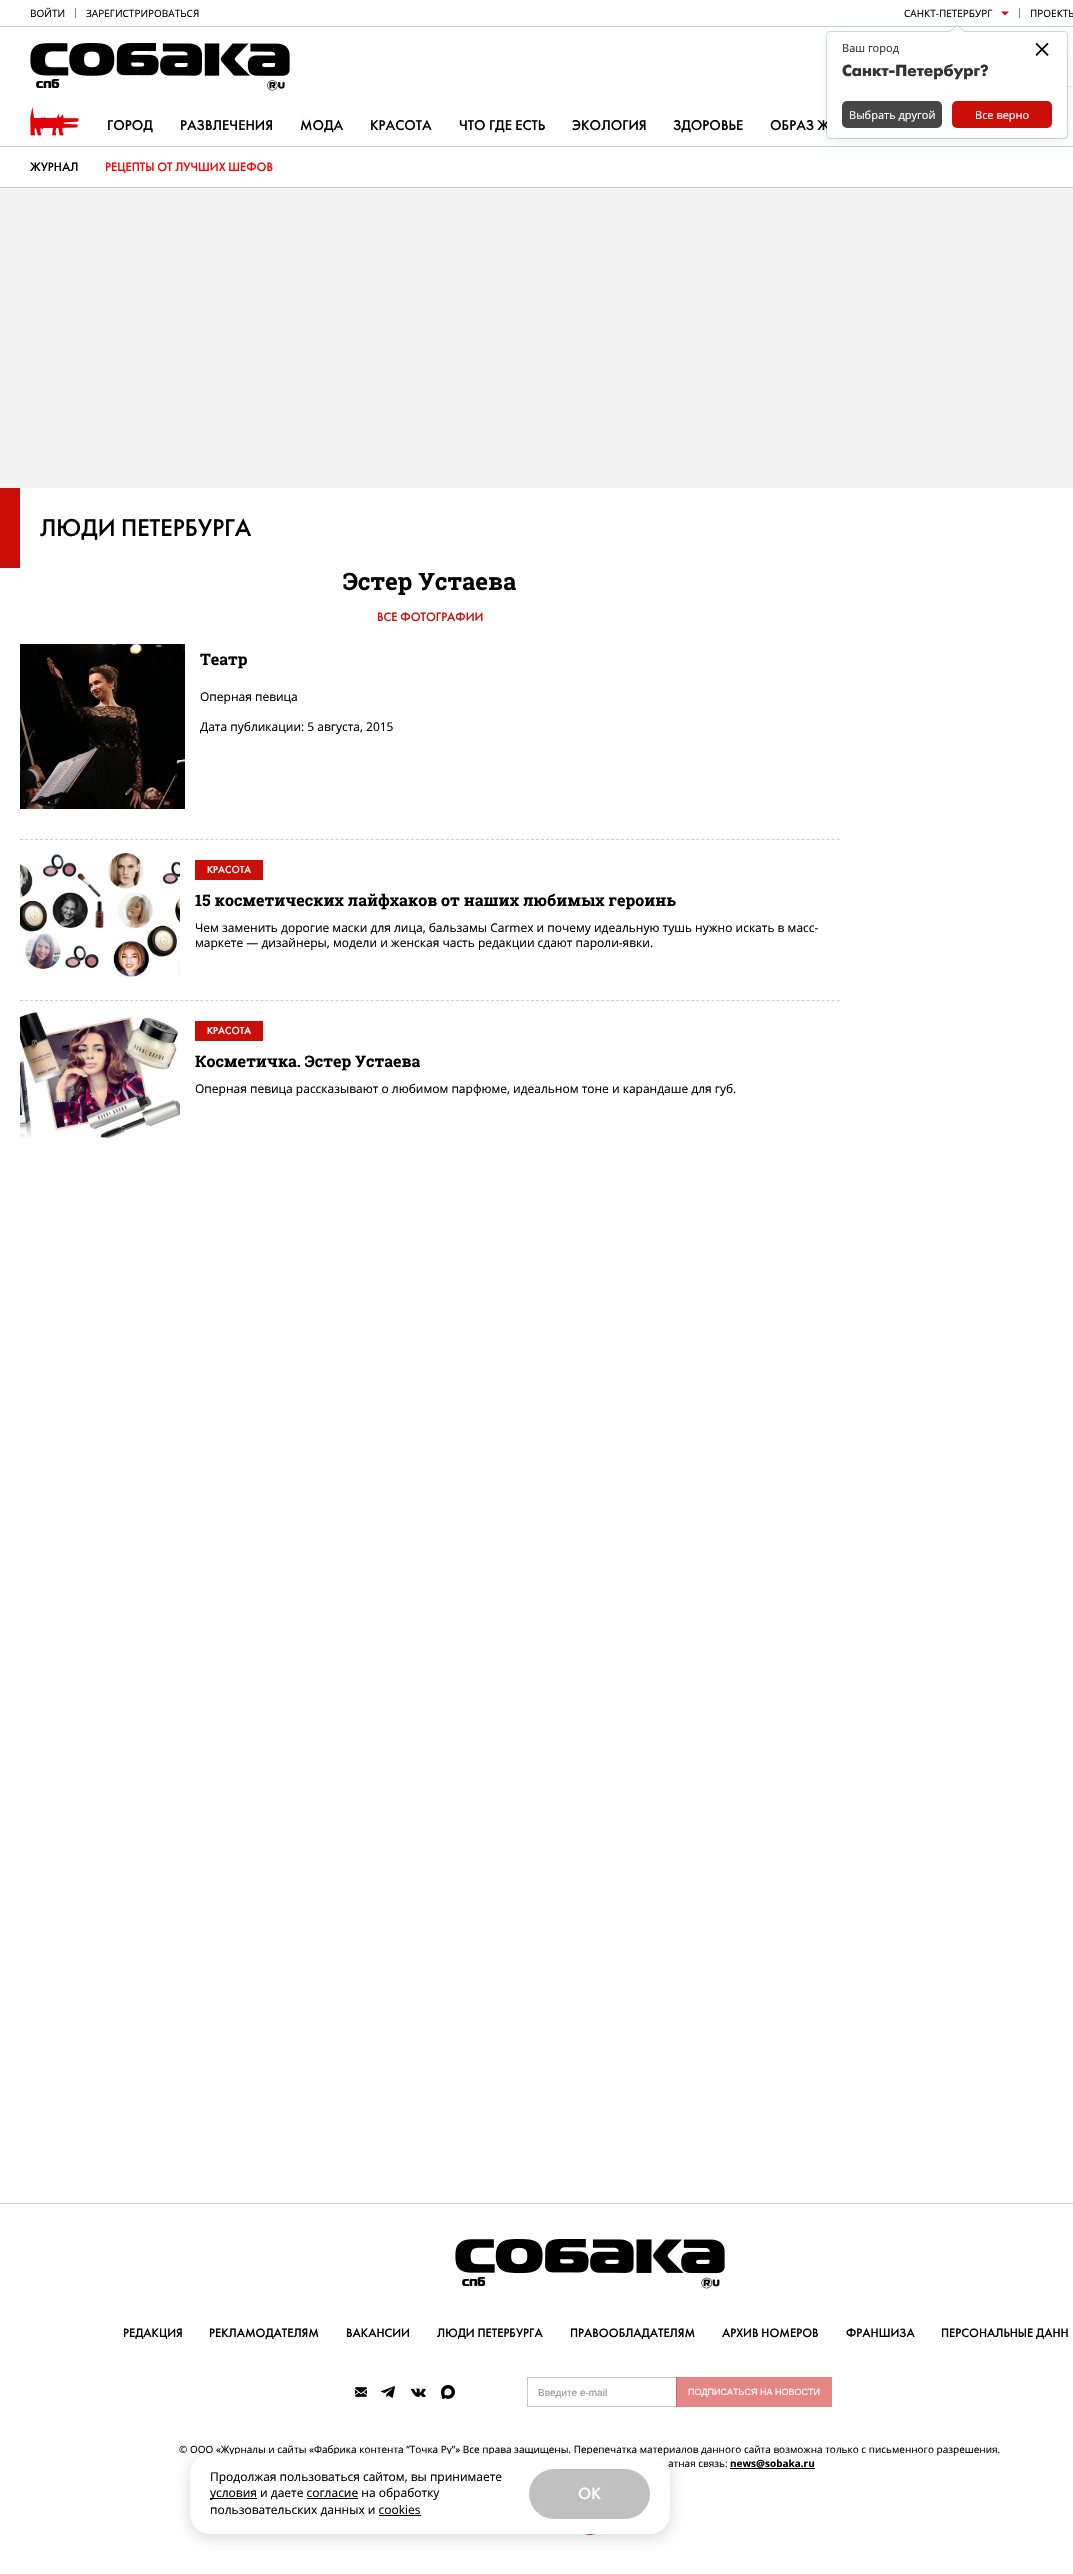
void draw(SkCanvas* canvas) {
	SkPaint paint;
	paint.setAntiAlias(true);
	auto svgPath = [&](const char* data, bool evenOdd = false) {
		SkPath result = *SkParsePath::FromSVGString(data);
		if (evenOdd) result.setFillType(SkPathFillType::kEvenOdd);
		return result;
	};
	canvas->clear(0xfff3f3f3);
	paint.setColor(0xffffffff);
	canvas->drawRect(SkRect::MakeXYWH(0, 0, 1073, 187), paint);
	paint.setColor(0xffcdcdcd);
	canvas->drawRect(SkRect::MakeXYWH(0, 26, 1073, 1), paint);
	SkFont f1(fontMgr->matchFamilyStyle("Open Sans", SkFontStyle::Normal()), 10);
	f1.setSubpixel(true);
	paint.setColor(0xff000000);
	canvas->drawString("ВОЙТИ", 30, 17, f1, paint);
	paint.setColor(0xff898989);
	canvas->drawRect(SkRect::MakeXYWH(75, 8, 1, 10), paint);
	paint.setColor(0xff000000);
	canvas->drawString("ЗАРЕГИСТРИРОВАТЬСЯ", 86, 17, f1, paint);
	canvas->drawString("САНКТ-ПЕТЕРБУРГ", 904, 17, f1, paint);
	paint.setColor(0xffca0f09);
	canvas->drawPath(svgPath("M1001 11.5H1009L1005 15.5Z"), paint);
	paint.setColor(0xff898989);
	canvas->drawRect(SkRect::MakeXYWH(1019, 8, 1, 10), paint);
	paint.setColor(0xff000000);
	canvas->drawString("ПРОЕКТЫ", 1030, 17, f1, paint);
	canvas->drawImageRect(SkImages::DeferredFromEncodedData(SkData::MakeFromFileName("img1.png")), SkRect::MakeXYWH(30, 43, 260, 48), SkSamplingOptions());
	SkFont f2(fontMgr->matchFamilyStyle("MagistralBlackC", SkFontStyle(900, SkFontStyle::kNormal_Width, SkFontStyle::kUpright_Slant)), 13);
	f2.setSubpixel(true);
	canvas->drawString("спб", 36, 88, f2, paint);
	paint.setColor(0xffebebeb);
	canvas->drawRect(SkRect::MakeXYWH(1067, 86, 6, 1), paint);
	paint.setColor(0xffcdcdcd);
	canvas->drawRect(SkRect::MakeXYWH(0, 146, 1073, 1), paint);
	canvas->drawImageRect(SkImages::DeferredFromEncodedData(SkData::MakeFromFileName("img2.png")), SkRect::MakeXYWH(30, 107, 49, 29), SkSamplingOptions());
	SkFont f3(fontMgr->matchFamilyStyle("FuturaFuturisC", SkFontStyle::Normal()), 14);
	f3.setSubpixel(true);
	paint.setColor(0xff000000);
	canvas->drawString("ГОРОД", 107, 130, f3, paint);
	canvas->drawString("РАЗВЛЕЧЕНИЯ", 180, 130, f3, paint);
	canvas->drawString("МОДА", 300, 130, f3, paint);
	canvas->drawString("КРАСОТА", 370, 130, f3, paint);
	canvas->drawString("ЧТО ГДЕ ЕСТЬ", 459, 130, f3, paint);
	canvas->drawString("ЭКОЛОГИЯ", 572, 130, f3, paint);
	canvas->drawString("ЗДОРОВЬЕ", 673, 130, f3, paint);
	canvas->drawString("ОБРАЗ Ж", 770, 130, f3, paint);
	paint.setColor(0xffcdcdcd);
	canvas->drawRect(SkRect::MakeXYWH(0, 187, 1073, 1), paint);
	SkFont f4(fontMgr->matchFamilyStyle("FuturaFuturisC", SkFontStyle::Normal()), 12);
	f4.setSubpixel(true);
	paint.setColor(0xff000000);
	canvas->drawString("ЖУРНАЛ", 30, 171, f4, paint);
	paint.setColor(0xffff0000);
	canvas->drawString("РЕЦЕПТЫ ОТ ЛУЧШИХ ШЕФОВ", 105, 171, f4, paint);
	paint.setColor(0xffffffff);
	canvas->drawRect(SkRect::MakeXYWH(0, 488, 1073, 1715), paint);
	paint.setColor(0xffca0f09);
	canvas->drawRect(SkRect::MakeXYWH(0, 488, 20, 80), paint);
	SkFont f5(fontMgr->matchFamilyStyle("FuturaFuturisC", SkFontStyle::Normal()), 24);
	f5.setSubpixel(true);
	paint.setColor(0xff000000);
	canvas->drawString("ЛЮДИ ПЕТЕРБУРГА", 40, 536, f5, paint);
	SkFont f6(fontMgr->matchFamilyStyle("Roboto Slab", SkFontStyle::Bold()), 24);
	f6.setSubpixel(true);
	canvas->drawString("Эстер Устаева", 343, 590, f6, paint);
	paint.setColor(0xffca0f09);
	canvas->drawString("ВСЕ ФОТОГРАФИИ", 377, 621, f4, paint);
	paint.setStroke(true);
	paint.setStrokeWidth(1);
	paint.setColor(0xffcdcdcd);
	paint.setPathEffect(SkDashPathEffect::Make({{3, 2.01f}}, 0));
	canvas->drawPath(svgPath("M20 839.5H840"), paint);
	paint.setPathEffect(nullptr);
	canvas->drawImageRect(SkImages::DeferredFromEncodedData(SkData::MakeFromFileName("img3.png")), SkRect::MakeXYWH(20, 644, 165, 165), SkSamplingOptions());
	SkFont f7(fontMgr->matchFamilyStyle("Roboto Slab", SkFontStyle::Bold()), 16);
	f7.setSubpixel(true);
	paint.setStroke(false);
	paint.setColor(0xff000000);
	canvas->drawString("Театр", 200, 665, f7, paint);
	SkFont f8(fontMgr->matchFamilyStyle("Open Sans", SkFontStyle::Normal()), 12);
	f8.setSubpixel(true);
	canvas->drawString("Оперная певица", 200, 701, f8, paint);
	canvas->drawString("Дата публикации: 5 августа, 2015", 200, 731, f8, paint);
	canvas->drawImageRect(SkImages::DeferredFromEncodedData(SkData::MakeFromFileName("img4.png")), SkRect::MakeXYWH(20, 852, 160, 127), SkSamplingOptions());
	paint.setColor(0xffca0f09);
	canvas->drawRect(SkRect::MakeXYWH(195, 860, 68, 20), paint);
	SkFont f9(fontMgr->matchFamilyStyle("FuturaFuturisC", SkFontStyle::Normal()), 10);
	f9.setSubpixel(true);
	paint.setColor(0xffffffff);
	canvas->drawString("КРАСОТА", 207, 873, f9, paint);
	paint.setColor(0xff000000);
	canvas->drawString("15 косметических лайфхаков от наших любимых героинь", 195, 906, f7, paint);
	canvas->drawString("Чем заменить дорогие маски для лица, бальзамы Carmex и почему идеальную тушь нужно искать в масс-", 195, 932, f8, paint);
	canvas->drawString("маркете — дизайнеры, модели и женская часть редакции сдают пароли-явки.", 195, 947, f8, paint);
	paint.setStroke(true);
	paint.setColor(0xffcdcdcd);
	paint.setPathEffect(SkDashPathEffect::Make({{3, 2.01f}}, 0));
	canvas->drawPath(svgPath("M20 1000.5H840"), paint);
	paint.setPathEffect(nullptr);
	canvas->drawImageRect(SkImages::DeferredFromEncodedData(SkData::MakeFromFileName("img5.png")), SkRect::MakeXYWH(20, 1011, 160, 128), SkSamplingOptions());
	paint.setStroke(false);
	paint.setColor(0xffca0f09);
	canvas->drawRect(SkRect::MakeXYWH(195, 1021, 68, 20), paint);
	paint.setColor(0xffffffff);
	canvas->drawString("КРАСОТА", 207, 1034, f9, paint);
	paint.setColor(0xff000000);
	canvas->drawString("Косметичка. Эстер Устаева", 195, 1067, f7, paint);
	canvas->drawString("Оперная певица рассказывают о любимом парфюме, идеальном тоне и карандаше для губ.", 195, 1093, f8, paint);
	paint.setColor(0xffffffff);
	canvas->drawRect(SkRect::MakeXYWH(0, 2204, 1073, 370), paint);
	paint.setColor(0xffcdcdcd);
	canvas->drawRect(SkRect::MakeXYWH(0, 2203, 1073, 1), paint);
	canvas->drawImageRect(SkImages::DeferredFromEncodedData(SkData::MakeFromFileName("img6.png")), SkRect::MakeXYWH(455, 2239, 270, 50), SkSamplingOptions());
	paint.setColor(0xff000000);
	canvas->drawString("спб", 462, 2286, f2, paint);
	canvas->drawString("РЕДАКЦИЯ", 123, 2337, f4, paint);
	canvas->drawString("РЕКЛАМОДАТЕЛЯМ", 209, 2337, f4, paint);
	canvas->drawString("ВАКАНСИИ", 346, 2337, f4, paint);
	canvas->drawString("ЛЮДИ ПЕТЕРБУРГА", 437, 2337, f4, paint);
	canvas->drawString("ПРАВООБЛАДАТЕЛЯМ", 570, 2337, f4, paint);
	canvas->drawString("АРХИВ НОМЕРОВ", 722, 2337, f4, paint);
	canvas->drawString("ФРАНШИЗА", 846, 2337, f4, paint);
	canvas->drawString("ПЕРСОНАЛЬНЫЕ ДАНН", 941, 2337, f4, paint);
	canvas->drawImageRect(SkImages::DeferredFromEncodedData(SkData::MakeFromFileName("img7.png")), SkRect::MakeXYWH(355, 2387, 12, 10), SkSamplingOptions());
	canvas->drawImageRect(SkImages::DeferredFromEncodedData(SkData::MakeFromFileName("img8.png")), SkRect::MakeXYWH(381, 2386, 14, 12), SkSamplingOptions());
	canvas->drawImageRect(SkImages::DeferredFromEncodedData(SkData::MakeFromFileName("img9.png")), SkRect::MakeXYWH(411, 2388, 15, 9), SkSamplingOptions());
	canvas->drawImageRect(SkImages::DeferredFromEncodedData(SkData::MakeFromFileName("img10.png")), SkRect::MakeXYWH(441, 2385, 14, 14), SkSamplingOptions());
	paint.setStroke(true);
	paint.setColor(0xffc8c8c8);
	canvas->drawRect(SkRect::MakeXYWH(527.5, 2377.5, 149, 29), paint);
	SkFont f10(fontMgr->matchFamilyStyle("Liberation Sans", SkFontStyle::Normal()), 10);
	f10.setSubpixel(true);
	paint.setStroke(false);
	paint.setColor(0xff959595);
	canvas->drawString("Введите e-mail", 538, 2396, f10, paint);
	paint.setColor(0x80ca0f09);
	canvas->drawRect(SkRect::MakeXYWH(676, 2377, 156, 30), paint);
	SkFont f11(fontMgr->matchFamilyStyle("Liberation Sans", SkFontStyle::Normal()), 9);
	f11.setSubpixel(true);
	paint.setColor(0xffffffff);
	canvas->drawString("ПОДПИСАТЬСЯ НА НОВОСТИ", 688, 2395, f11, paint);
	paint.setColor(0xff000000);
	canvas->drawString("© ООО «Журналы и сайты «Фабрика контента “Точка Ру”» Все права защищены. Перепечатка материалов данного сайта возможна только с письменного разрешения.", 179, 2453, f1, paint);
	canvas->drawString("атная связь:", 668, 2467, f1, paint);
	SkFont f12(fontMgr->matchFamilyStyle("Open Sans", SkFontStyle::Bold()), 10);
	f12.setSubpixel(true);
	canvas->drawString("news@sobaka.ru", 730, 2467, f12, paint);
	canvas->drawRect(SkRect::MakeXYWH(730, 2468, 85, 1), paint);
	paint.setStroke(true);
	paint.setColor(0xffca0f09);
	canvas->drawCircle(590, 2520, 14.5, paint);
	paint.setStroke(false);
	paint.setColor(0x14000810);
	paint.setMaskFilter(SkMaskFilter::MakeBlur(kNormal_SkBlurStyle, 7));
	canvas->drawRoundRect(SkRect::MakeXYWH(828, 37, 238, 104), 2, 2, paint);
	paint.setMaskFilter(nullptr);
	paint.setColor(0xffffffff);
	canvas->drawRoundRect(SkRect::MakeXYWH(827, 32, 240, 106), 3, 3, paint);
	paint.setStroke(true);
	paint.setColor(0x26000810);
	canvas->drawRoundRect(SkRect::MakeXYWH(826.5, 31.5, 241, 107), 3.5, 3.5, paint);
	canvas->drawImageRect(SkImages::DeferredFromEncodedData(SkData::MakeFromFileName("img11.png")), SkRect::MakeXYWH(949, 25, 16, 6), SkSamplingOptions());
	canvas->drawImageRect(SkImages::DeferredFromEncodedData(SkData::MakeFromFileName("img12.png")), SkRect::MakeXYWH(949, 26, 16, 6), SkSamplingOptions());
	SkFont f13(fontMgr->matchFamilyStyle("Open Sans", SkFontStyle::Normal()), 11);
	f13.setSubpixel(true);
	paint.setStroke(false);
	paint.setColor(0xff333333);
	canvas->drawString("Ваш город", 842, 52, f13, paint);
	SkFont f14(fontMgr->matchFamilyStyle("Liberation Serif", SkFontStyle::Normal()), 32);
	f14.setSubpixel(true);
	paint.setColor(0xff000000);
	canvas->drawString("×", 1033, 60, f14, paint);
	SkFont f15(fontMgr->matchFamilyStyle("FuturaFuturisC", SkFontStyle::Bold()), 16);
	f15.setSubpixel(true);
	paint.setColor(0xff333333);
	canvas->drawString("Санкт-Петербург?", 842, 76, f15, paint);
	paint.setColor(0xff464646);
	canvas->drawRoundRect(SkRect::MakeXYWH(842, 101, 100, 27), 5, 5, paint);
	paint.setColor(0xffffffff);
	canvas->drawString("Выбрать другой", 849, 119, f13, paint);
	paint.setColor(0xffca0f09);
	canvas->drawRoundRect(SkRect::MakeXYWH(952, 101, 100, 27), 5, 5, paint);
	paint.setColor(0xffffffff);
	canvas->drawString("Все верно", 975, 119, f13, paint);
	paint.setColor(0x26000000);
	paint.setMaskFilter(SkMaskFilter::MakeBlur(kNormal_SkBlurStyle, 7.5));
	canvas->drawRoundRect(SkRect::MakeXYWH(190, 2458, 480, 80), 20, 20, paint);
	paint.setMaskFilter(nullptr);
	paint.setColor(0xffffffff);
	canvas->drawRoundRect(SkRect::MakeXYWH(190, 2454, 480, 80), 20, 20, paint);
	paint.setColor(0xff000000);
	canvas->drawString("Продолжая пользоваться сайтом, вы принимаете", 210, 2481, f8, paint);
	canvas->drawRect(SkRect::MakeXYWH(210, 2498, 47, 1), paint);
	canvas->drawString("условия и даете согласие на обработку", 210, 2497, f8, paint);
	canvas->drawRect(SkRect::MakeXYWH(307, 2498, 51, 1), paint);
	canvas->drawString("пользовательских данных и cookies", 210, 2514, f8, paint);
	canvas->drawRect(SkRect::MakeXYWH(379, 2515, 42, 1), paint);
	paint.setColor(0xffc0c0c0);
	canvas->drawRoundRect(SkRect::MakeXYWH(529, 2469, 121, 50), 25, 25, paint);
	SkFont f16(fontMgr->matchFamilyStyle("FuturaFuturisC", SkFontStyle::Normal()), 16);
	f16.setSubpixel(true);
	paint.setColor(0xffffffff);
	canvas->drawString("OK", 578, 2499, f16, paint);
}
